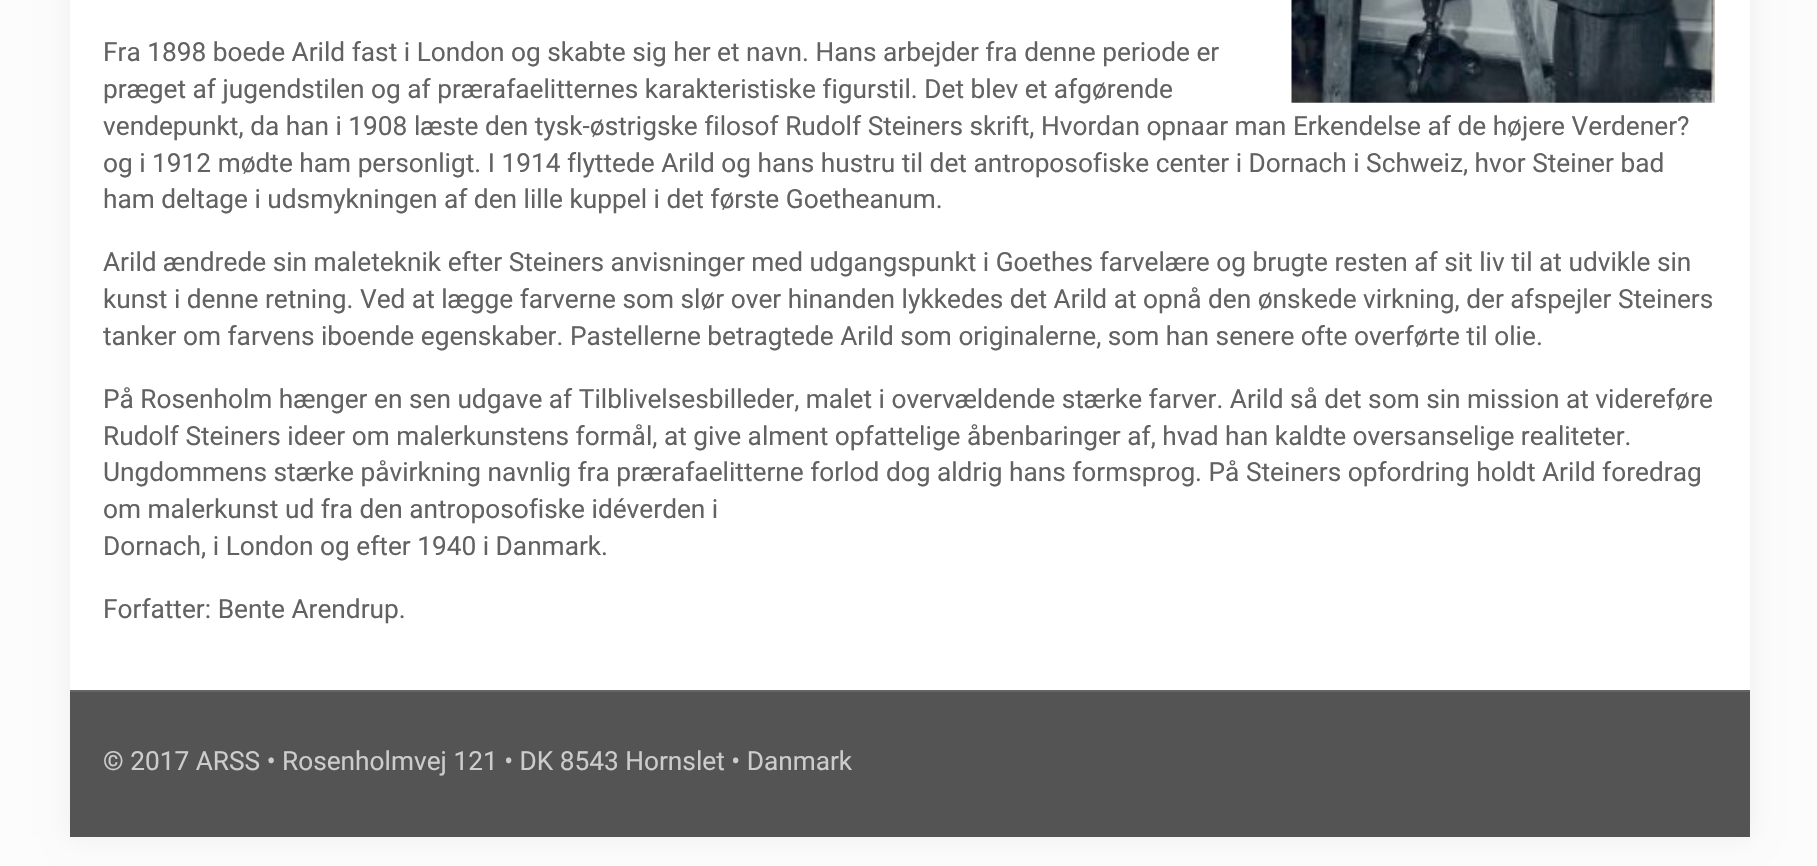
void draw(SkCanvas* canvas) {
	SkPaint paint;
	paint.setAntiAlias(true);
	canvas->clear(0xfffcfcfc);
	paint.setColor(0x0f000000);
	paint.setMaskFilter(SkMaskFilter::MakeBlur(kNormal_SkBlurStyle, 13));
	canvas->drawRect(SkRect::MakeXYWH(70, -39, 1680, 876), paint);
	paint.setMaskFilter(nullptr);
	paint.setColor(0xffffffff);
	canvas->drawRect(SkRect::MakeXYWH(70, 0, 1680, 690), paint);
	canvas->drawImageRect(SkImages::DeferredFromEncodedData(SkData::MakeFromFileName("img1.png")), SkRect::MakeXYWH(1291, 0, 424, 103), SkSamplingOptions());
	SkFont f1(fontMgr->matchFamilyStyle("Roboto", SkFontStyle::Normal()), 26.25);
	f1.setSubpixel(true);
	paint.setColor(0xff626262);
	canvas->drawString("Fra 1898 boede Arild fast i London og skabte sig her et navn. Hans arbejder fra denne periode er", 103, 61, f1, paint);
	canvas->drawString("præget af jugendstilen og af prærafaelitternes karakteristiske figurstil. Det blev et afgørende", 103, 98, f1, paint);
	canvas->drawString("vendepunkt, da han i 1908 læste den tysk-østrigske filosof Rudolf Steiners skrift, Hvordan opnaar man Erkendelse af de højere Verdener?", 103, 135, f1, paint);
	canvas->drawString("og i 1912 mødte ham personligt. I 1914 flyttede Arild og hans hustru til det antroposofiske center i Dornach i Schweiz, hvor Steiner bad", 103, 172, f1, paint);
	canvas->drawString("ham deltage i udsmykningen af den lille kuppel i det første Goetheanum.", 103, 208, f1, paint);
	canvas->drawString("Arild ændrede sin maleteknik efter Steiners anvisninger med udgangspunkt i Goethes farvelære og brugte resten af sit liv til at udvikle sin", 103, 271, f1, paint);
	canvas->drawString("kunst i denne retning. Ved at lægge farverne som slør over hinanden lykkedes det Arild at opnå den ønskede virkning, der afspejler Steiners", 103, 308, f1, paint);
	canvas->drawString("tanker om farvens iboende egenskaber. Pastellerne betragtede Arild som originalerne, som han senere ofte overførte til olie.", 103, 345, f1, paint);
	canvas->drawString("På Rosenholm hænger en sen udgave af Tilblivelsesbilleder, malet i overvældende stærke farver. Arild så det som sin mission at videreføre", 103, 408, f1, paint);
	canvas->drawString("Rudolf Steiners ideer om malerkunstens formål, at give alment opfattelige åbenbaringer af, hvad han kaldte oversanselige realiteter.", 103, 445, f1, paint);
	canvas->drawString("Ungdommens stærke påvirkning navnlig fra prærafaelitterne forlod dog aldrig hans formsprog. På Steiners opfordring holdt Arild foredrag", 103, 481, f1, paint);
	canvas->drawString("om malerkunst ud fra den antroposofiske idéverden i", 103, 518, f1, paint);
	canvas->drawString("Dornach, i London og efter 1940 i Danmark.", 103, 555, f1, paint);
	canvas->drawString("Forfatter: Bente Arendrup.", 103, 618, f1, paint);
	paint.setColor(0xff545454);
	canvas->drawRect(SkRect::MakeXYWH(70, 692, 1680, 145), paint);
	paint.setColor(0xff656565);
	canvas->drawRect(SkRect::MakeXYWH(70, 690, 1680, 2), paint);
	paint.setColor(0xffcccccc);
	canvas->drawString("© 2017 ARSS • Rosenholmvej 121 • DK 8543 Hornslet • Danmark", 103, 770, f1, paint);
}
